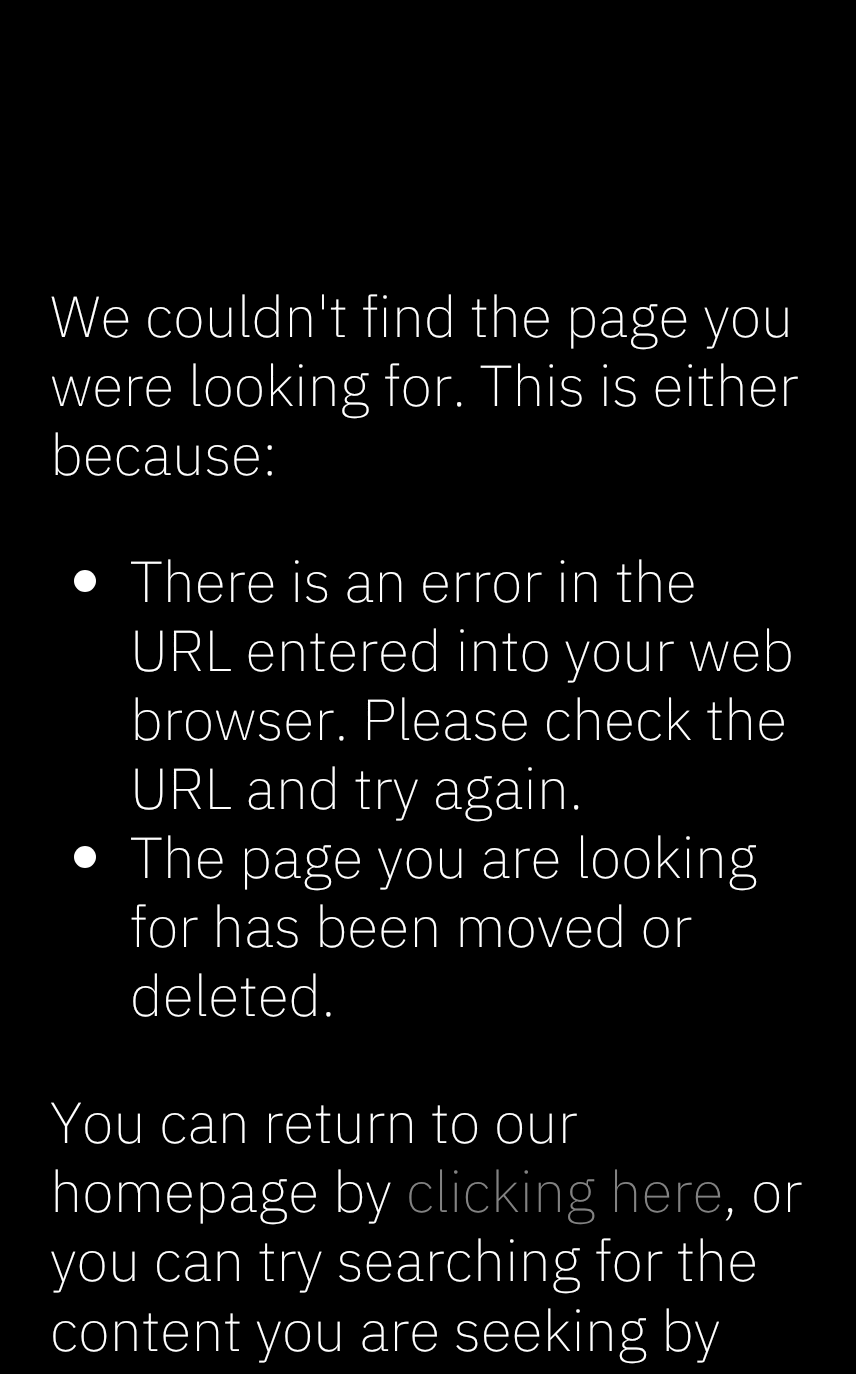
void draw(SkCanvas* canvas) {
	SkPaint paint;
	paint.setAntiAlias(true);
	canvas->clear(0xff000000);
	SkFont f1(fontMgr->matchFamilyStyle("IBM Plex Sans", SkFontStyle(200, SkFontStyle::kNormal_Width, SkFontStyle::kUpright_Slant)), 57.6);
	f1.setSubpixel(true);
	paint.setColor(0xffffffff);
	canvas->drawString("We couldn't find the page you", 50, 337, f1, paint);
	canvas->drawString("were looking for. This is either", 50, 406, f1, paint);
	canvas->drawString("because:", 50, 475, f1, paint);
	canvas->drawCircle(85, 581, 11, paint);
	canvas->drawString("There is an error in the", 130, 602, f1, paint);
	canvas->drawString("URL entered into your web", 130, 671, f1, paint);
	canvas->drawString("browser. Please check the", 130, 740, f1, paint);
	canvas->drawString("URL and try again.", 130, 809, f1, paint);
	canvas->drawCircle(85, 857, 11, paint);
	canvas->drawString("The page you are looking", 130, 878, f1, paint);
	canvas->drawString("for has been moved or", 130, 947, f1, paint);
	canvas->drawString("deleted.", 130, 1016, f1, paint);
	canvas->drawString("You can return to our", 50, 1143, f1, paint);
	canvas->drawString("homepage by", 50, 1212, f1, paint);
	paint.setColor(0xff828282);
	canvas->drawString("clicking here", 406, 1212, f1, paint);
	paint.setColor(0xffffffff);
	canvas->drawString(", or", 723, 1212, f1, paint);
	canvas->drawString("you can try searching for the", 50, 1281, f1, paint);
	canvas->drawString("content you are seeking by", 50, 1351, f1, paint);
}
